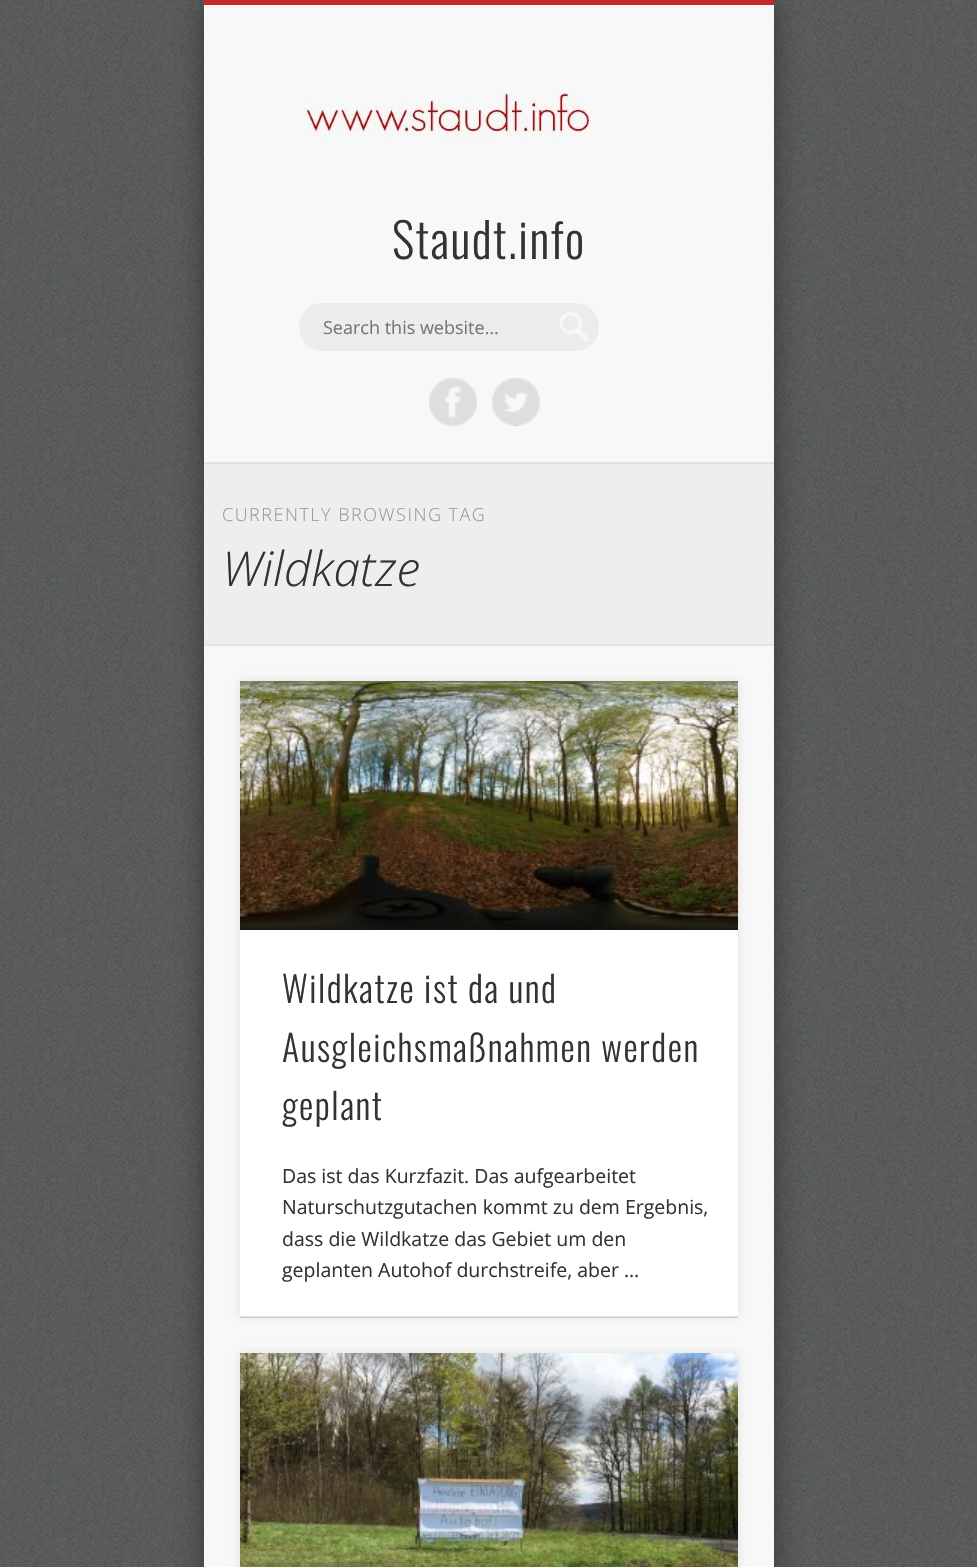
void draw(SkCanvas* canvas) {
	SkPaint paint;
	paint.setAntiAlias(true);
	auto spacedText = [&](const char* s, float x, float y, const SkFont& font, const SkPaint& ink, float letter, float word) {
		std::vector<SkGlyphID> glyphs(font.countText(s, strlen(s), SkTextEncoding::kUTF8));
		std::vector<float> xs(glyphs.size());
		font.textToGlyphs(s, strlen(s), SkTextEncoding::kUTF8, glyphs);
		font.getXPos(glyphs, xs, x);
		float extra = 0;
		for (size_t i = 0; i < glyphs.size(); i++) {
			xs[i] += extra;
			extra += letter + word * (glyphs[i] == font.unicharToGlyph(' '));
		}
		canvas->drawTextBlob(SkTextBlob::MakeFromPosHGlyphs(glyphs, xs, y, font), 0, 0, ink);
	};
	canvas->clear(0xffffffff);
	canvas->drawImageRect(SkImages::DeferredFromEncodedData(SkData::MakeFromFileName("img1.png")), SkRect::MakeXYWH(0, 0, 977, 1567), SkSamplingOptions());
	paint.setColor(0x66000000);
	paint.setMaskFilter(SkMaskFilter::MakeBlur(kNormal_SkBlurStyle, 13.5));
	canvas->drawRect(SkRect::MakeXYWH(204, 0, 570, 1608), paint);
	paint.setMaskFilter(nullptr);
	paint.setColor(0xfff8f8f8);
	canvas->drawRect(SkRect::MakeXYWH(204, 5, 570, 1562), paint);
	paint.setColor(0xffc62929);
	canvas->drawRect(SkRect::MakeXYWH(204, 0, 570, 5), paint);
	canvas->drawImageRect(SkImages::DeferredFromEncodedData(SkData::MakeFromFileName("img2.png")), SkRect::MakeXYWH(301, 88, 294, 53), SkSamplingOptions());
	SkFont f1(fontMgr->matchFamilyStyle("Oswald", SkFontStyle(300, SkFontStyle::kNormal_Width, SkFontStyle::kUpright_Slant)), 48);
	f1.setSubpixel(true);
	paint.setColor(0xff333333);
	spacedText("Staudt.info", 392, 259, f1, paint, 1.5, 0);
	paint.setColor(0xffececec);
	canvas->drawRoundRect(SkRect::MakeXYWH(299, 303, 300, 48), 24, 24, paint);
	canvas->drawImageRect(SkImages::DeferredFromEncodedData(SkData::MakeFromFileName("img3.png")), SkRect::MakeXYWH(559, 312, 30, 30), SkSamplingOptions());
	SkFont f2(fontMgr->matchFamilyStyle("Open Sans", SkFontStyle::Normal()), 18);
	f2.setSubpixel(true);
	paint.setColor(0xff757575);
	canvas->drawString("Search this website…", 323, 334, f2, paint);
	canvas->drawImageRect(SkImages::DeferredFromEncodedData(SkData::MakeFromFileName("img4.png")), SkRect::MakeXYWH(429, 378, 48, 48), SkSamplingOptions());
	canvas->drawImageRect(SkImages::DeferredFromEncodedData(SkData::MakeFromFileName("img5.png")), SkRect::MakeXYWH(492, 378, 48, 48), SkSamplingOptions());
	paint.setColor(0xffeeeeee);
	canvas->drawRect(SkRect::MakeXYWH(204, 464, 570, 181), paint);
	paint.setColor(0xffe1e1e1);
	canvas->drawRect(SkRect::MakeXYWH(204, 462, 570, 2), paint);
	paint.setColor(0x0f000000);
	canvas->drawRect(SkRect::MakeXYWH(204, 644, 570, 2), paint);
	SkFont f3(fontMgr->matchFamilyStyle("Open Sans", SkFontStyle(300, SkFontStyle::kNormal_Width, SkFontStyle::kUpright_Slant)), 18);
	f3.setSubpixel(true);
	paint.setColor(0xff999999);
	spacedText("CURRENTLY BROWSING TAG", 222, 521, f3, paint, 1.5, 0);
	SkFont f4(fontMgr->matchFamilyStyle("Open Sans", SkFontStyle(300, SkFontStyle::kNormal_Width, SkFontStyle::kItalic_Slant)), 48);
	f4.setSubpixel(true);
	paint.setColor(0xff333333);
	canvas->drawString("Wildkatze", 222, 586, f4, paint);
	paint.setColor(0x1a000000);
	paint.setMaskFilter(SkMaskFilter::MakeBlur(kNormal_SkBlurStyle, 4));
	canvas->drawRect(SkRect::MakeXYWH(240, 681, 498, 636), paint);
	paint.setMaskFilter(nullptr);
	paint.setColor(0xffffffff);
	canvas->drawRect(SkRect::MakeXYWH(240, 930, 498, 387), paint);
	paint.setColor(0x21000000);
	canvas->drawRect(SkRect::MakeXYWH(240, 1316, 498, 2), paint);
	canvas->drawImageRect(SkImages::DeferredFromEncodedData(SkData::MakeFromFileName("img6.png")), SkRect::MakeXYWH(240, 681, 498, 249), SkSamplingOptions());
	SkFont f5(fontMgr->matchFamilyStyle("Oswald", SkFontStyle(300, SkFontStyle::kNormal_Width, SkFontStyle::kUpright_Slant)), 36);
	f5.setSubpixel(true);
	paint.setColor(0xff333333);
	spacedText("Wildkatze ist da und", 282, 1003, f5, paint, 1.5, 0);
	spacedText("Ausgleichsmaßnahmen werden", 282, 1062, f5, paint, 1.5, 0);
	spacedText("geplant", 282, 1120, f5, paint, 1.5, 0);
	SkFont f6(fontMgr->matchFamilyStyle("Open Sans", SkFontStyle::Normal()), 19.5);
	f6.setSubpixel(true);
	canvas->drawString("Das ist das Kurzfazit. Das aufgearbeitet", 282, 1183, f6, paint);
	canvas->drawString("Naturschutzgutachen kommt zu dem Ergebnis,", 282, 1214, f6, paint);
	canvas->drawString("dass die Wildkatze das Gebiet um den", 282, 1246, f6, paint);
	canvas->drawString("geplanten Autohof durchstreife, aber …", 282, 1277, f6, paint);
	paint.setColor(0x1a000000);
	paint.setMaskFilter(SkMaskFilter::MakeBlur(kNormal_SkBlurStyle, 4));
	canvas->drawRect(SkRect::MakeXYWH(240, 1353, 498, 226), paint);
	paint.setMaskFilter(nullptr);
	canvas->drawImageRect(SkImages::DeferredFromEncodedData(SkData::MakeFromFileName("img7.png")), SkRect::MakeXYWH(240, 1353, 498, 214), SkSamplingOptions());
}
